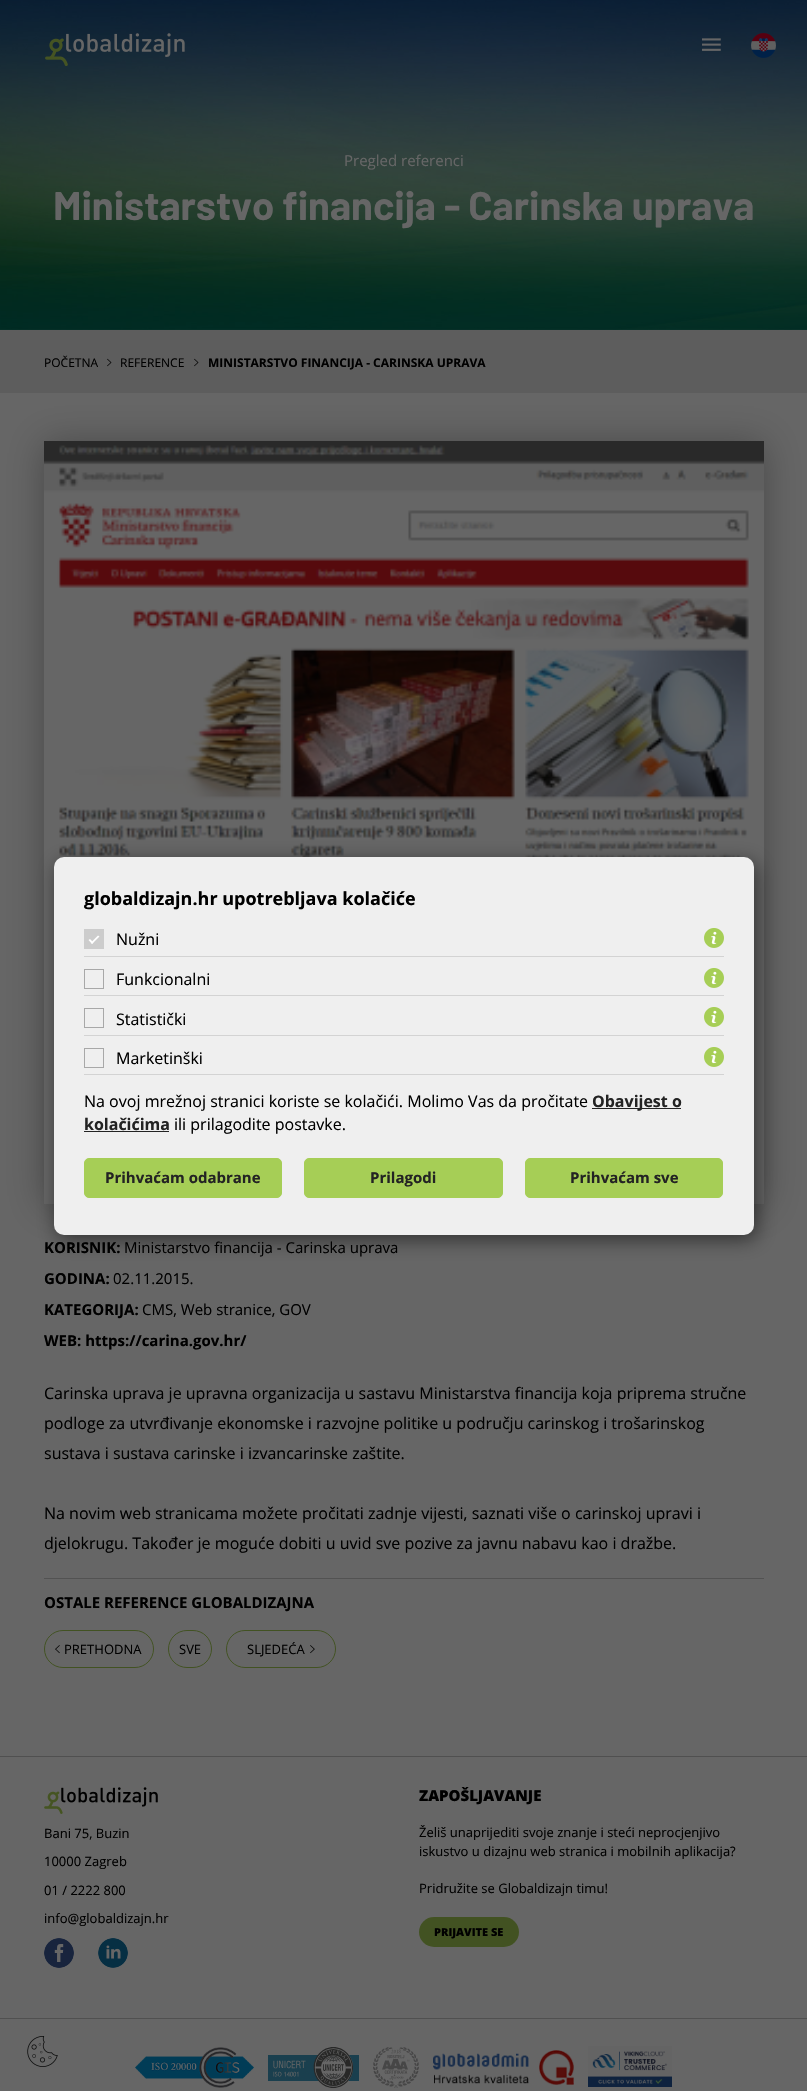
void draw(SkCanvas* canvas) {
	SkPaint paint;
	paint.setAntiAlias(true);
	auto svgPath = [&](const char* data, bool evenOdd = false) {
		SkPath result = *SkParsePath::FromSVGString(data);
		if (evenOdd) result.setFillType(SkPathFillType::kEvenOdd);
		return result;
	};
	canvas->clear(0xff666666);
	canvas->drawImageRect(SkImages::DeferredFromEncodedData(SkData::MakeFromFileName("img4.png")), SkRect::MakeXYWH(0, 0, 807, 330), SkSamplingOptions());
	canvas->drawImageRect(SkImages::DeferredFromEncodedData(SkData::MakeFromFileName("img1.png")), SkRect::MakeXYWH(45, 33, 140, 33), SkSamplingOptions());
	canvas->drawImageRect(SkImages::DeferredFromEncodedData(SkData::MakeFromFileName("img2.png")), SkRect::MakeXYWH(702, 38, 19, 13), SkSamplingOptions());
	canvas->drawImageRect(SkImages::DeferredFromEncodedData(SkData::MakeFromFileName("img3.png")), SkRect::MakeXYWH(751, 33, 25, 25), SkSamplingOptions());
	SkFont f1(fontMgr->matchFamilyStyle("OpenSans", SkFontStyle::Normal()), 15);
	f1.setSubpixel(true);
	paint.setColor(0xff666666);
	canvas->drawString("Pregled referenci", 344, 166, f1, paint);
	SkFont f2(fontMgr->matchFamilyStyle("Barlow", SkFontStyle::Bold()), 40);
	f2.setSubpixel(true);
	canvas->drawString("Ministarstvo financija - Carinska uprava", 53, 220, f2, paint);
	paint.setColor(0xff5d5d5d);
	canvas->drawRect(SkRect::MakeXYWH(0, 330, 807, 63), paint);
	SkFont f3(fontMgr->matchFamilyStyle("OpenSans", SkFontStyle::Normal()), 12);
	f3.setSubpixel(true);
	paint.setColor(0xff000000);
	canvas->drawString("POČETNA", 44, 367, f3, paint);
	canvas->drawImageRect(SkImages::DeferredFromEncodedData(SkData::MakeFromFileName("img5.png")), SkRect::MakeXYWH(107, 358, 5, 9), SkSamplingOptions());
	canvas->drawString("REFERENCE", 120, 367, f3, paint);
	canvas->drawImageRect(SkImages::DeferredFromEncodedData(SkData::MakeFromFileName("img5.png")), SkRect::MakeXYWH(194, 358, 5, 9), SkSamplingOptions());
	SkFont f4(fontMgr->matchFamilyStyle("OpenSans", SkFontStyle::Bold()), 12);
	f4.setSubpixel(true);
	canvas->drawString("MINISTARSTVO FINANCIJA - CARINSKA UPRAVA", 208, 367, f4, paint);
	paint.setColor(0x4d000000);
	paint.setMaskFilter(SkMaskFilter::MakeBlur(kNormal_SkBlurStyle, 17.5));
	canvas->drawRect(SkRect::MakeXYWH(44, 443, 720, 763), paint);
	paint.setMaskFilter(nullptr);
	canvas->drawImageRect(SkImages::DeferredFromEncodedData(SkData::MakeFromFileName("img7.png")), SkRect::MakeXYWH(44, 441, 720, 763), SkSamplingOptions());
	paint.setColor(0x80000000);
	paint.setMaskFilter(SkMaskFilter::MakeBlur(kNormal_SkBlurStyle, 10));
	canvas->drawRoundRect(SkRect::MakeXYWH(57, 862, 700, 378), 10, 10, paint);
	paint.setMaskFilter(nullptr);
	paint.setColor(0xffefefef);
	canvas->drawRoundRect(SkRect::MakeXYWH(54, 857, 700, 378), 10, 10, paint);
	SkFont f5(fontMgr->matchFamilyStyle("OpenSans", SkFontStyle::Bold()), 18);
	f5.setSubpixel(true);
	paint.setColor(0xff000000);
	canvas->drawString("globaldizajn.hr upotrebljava kolačiće", 84, 905, f5, paint);
	paint.setColor(0xffcccccc);
	canvas->drawRect(SkRect::MakeXYWH(84, 929, 20, 20), paint);
	SkFont f6(fontMgr->matchFamilyStyle("OpenSans", SkFontStyle::Normal()), 16);
	f6.setSubpixel(true);
	paint.setColor(0xff000000);
	canvas->drawString("Nužni", 116, 945, f6, paint);
	paint.setColor(0xffffffff);
	canvas->drawPath(svgPath("M98 935.5L99.5 936.5L92 944L91 942.5Z"), paint);
	canvas->drawPath(svgPath("M90 939L93.5 942.5L92 944L88.5 940Z"), paint);
	canvas->drawImageRect(SkImages::DeferredFromEncodedData(SkData::MakeFromFileName("img6.png")), SkRect::MakeXYWH(704, 928, 20, 20), SkSamplingOptions());
	paint.setColor(0xffd3d3d3);
	canvas->drawRect(SkRect::MakeXYWH(84, 956, 640, 1), paint);
	paint.setStroke(true);
	paint.setStrokeWidth(1);
	paint.setColor(0xffa8a8a8);
	canvas->drawRect(SkRect::MakeXYWH(84.5, 969.5, 19, 19), paint);
	paint.setStroke(false);
	paint.setColor(0xff000000);
	canvas->drawString("Funkcionalni", 116, 985, f6, paint);
	canvas->drawImageRect(SkImages::DeferredFromEncodedData(SkData::MakeFromFileName("img6.png")), SkRect::MakeXYWH(704, 968, 20, 20), SkSamplingOptions());
	paint.setColor(0xffd3d3d3);
	canvas->drawRect(SkRect::MakeXYWH(84, 995, 640, 1), paint);
	paint.setStroke(true);
	paint.setColor(0xffa8a8a8);
	canvas->drawRect(SkRect::MakeXYWH(84.5, 1008.5, 19, 19), paint);
	paint.setStroke(false);
	paint.setColor(0xff000000);
	canvas->drawString("Statistički", 116, 1025, f6, paint);
	canvas->drawImageRect(SkImages::DeferredFromEncodedData(SkData::MakeFromFileName("img6.png")), SkRect::MakeXYWH(704, 1007, 20, 20), SkSamplingOptions());
	paint.setColor(0xffd3d3d3);
	canvas->drawRect(SkRect::MakeXYWH(84, 1035, 640, 1), paint);
	paint.setStroke(true);
	paint.setColor(0xffa8a8a8);
	canvas->drawRect(SkRect::MakeXYWH(84.5, 1048.5, 19, 19), paint);
	paint.setStroke(false);
	paint.setColor(0xff000000);
	canvas->drawString("Marketinški", 116, 1064, f6, paint);
	canvas->drawImageRect(SkImages::DeferredFromEncodedData(SkData::MakeFromFileName("img6.png")), SkRect::MakeXYWH(704, 1047, 20, 20), SkSamplingOptions());
	paint.setColor(0xffd3d3d3);
	canvas->drawRect(SkRect::MakeXYWH(84, 1074, 640, 1), paint);
	paint.setColor(0xff000000);
	canvas->drawString("Na ovoj mrežnoj stranici koriste se kolačići. Molimo Vas da pročitate", 84, 1107, f6, paint);
	paint.setColor(0xff232323);
	canvas->drawRect(SkRect::MakeXYWH(592, 1108, 89, 1), paint);
	SkFont f7(fontMgr->matchFamilyStyle("OpenSans", SkFontStyle::Bold()), 16);
	f7.setSubpixel(true);
	canvas->drawString("Obavijest o", 592, 1107, f7, paint);
	canvas->drawString("kolačićima", 84, 1130, f7, paint);
	canvas->drawRect(SkRect::MakeXYWH(84, 1131, 85, 1), paint);
	paint.setColor(0xff000000);
	canvas->drawString("ili prilagodite postavke.", 174, 1130, f6, paint);
	paint.setColor(0xffa6ce56);
	canvas->drawRoundRect(SkRect::MakeXYWH(84.5, 1158.5, 197, 39), 4.5, 4.5, paint);
	paint.setStroke(true);
	canvas->drawRoundRect(SkRect::MakeXYWH(84.5, 1158.5, 197, 39), 4.5, 4.5, paint);
	SkFont f8(fontMgr->matchFamilyStyle("OpenSans", SkFontStyle::Bold()), 15);
	f8.setSubpixel(true);
	paint.setStroke(false);
	paint.setColor(0xff232323);
	canvas->drawString("Prihvaćam odabrane", 105, 1183, f8, paint);
	paint.setColor(0xffa6ce56);
	canvas->drawRoundRect(SkRect::MakeXYWH(304.5, 1158.5, 198, 39), 4.5, 4.5, paint);
	paint.setStroke(true);
	canvas->drawRoundRect(SkRect::MakeXYWH(304.5, 1158.5, 198, 39), 4.5, 4.5, paint);
	paint.setStroke(false);
	paint.setColor(0xff232323);
	canvas->drawString("Prilagodi", 370, 1183, f8, paint);
	paint.setColor(0xffa6ce56);
	canvas->drawRoundRect(SkRect::MakeXYWH(525.5, 1158.5, 197, 39), 4.5, 4.5, paint);
	paint.setStroke(true);
	canvas->drawRoundRect(SkRect::MakeXYWH(525.5, 1158.5, 197, 39), 4.5, 4.5, paint);
	paint.setStroke(false);
	paint.setColor(0xff232323);
	canvas->drawString("Prihvaćam sve", 570, 1183, f8, paint);
	paint.setColor(0xff000000);
	canvas->drawString("KORISNIK:", 44, 1253, f8, paint);
	canvas->drawString("Ministarstvo financija - Carinska uprava", 124, 1253, f1, paint);
	canvas->drawString("GODINA:", 44, 1284, f8, paint);
	canvas->drawString("02.11.2015.", 113, 1284, f1, paint);
	canvas->drawString("KATEGORIJA:", 44, 1315, f8, paint);
	canvas->drawString("CMS, Web stranice, GOV", 142, 1315, f1, paint);
	canvas->drawString("WEB: https://carina.gov.hr/", 44, 1346, f8, paint);
	canvas->drawString("Carinska uprava je upravna organizacija u sastavu Ministarstva financija koja priprema stručne", 44, 1399, f6, paint);
	canvas->drawString("podloge za utvrđivanje ekonomske i razvojne politike u području carinskog i trošarinskog", 44, 1429, f6, paint);
	canvas->drawString("sustava i sustava carinske i izvancarinske zaštite.", 44, 1459, f6, paint);
	canvas->drawString("Na novim web stranicama možete pročitati zadnje vijesti, saznati više o carinskoj upravi i", 44, 1519, f6, paint);
	canvas->drawString("djelokrugu. Također je moguće dobiti u uvid sve pozive za javnu nabavu kao i dražbe.", 44, 1549, f6, paint);
	paint.setColor(0xff525252);
	canvas->drawRect(SkRect::MakeXYWH(44, 1578, 720, 1), paint);
	paint.setColor(0xff000000);
	canvas->drawString("OSTALE REFERENCE GLOBALDIZAJNA", 44, 1608, f8, paint);
	paint.setStroke(true);
	paint.setColor(0xff425222);
	canvas->drawRoundRect(SkRect::MakeXYWH(44.5, 1630.5, 109, 37), 18.5, 18.5, paint);
	canvas->drawImageRect(SkImages::DeferredFromEncodedData(SkData::MakeFromFileName("img8.png")), SkRect::MakeXYWH(55, 1645, 5, 9), SkSamplingOptions());
	SkFont f9(fontMgr->matchFamilyStyle("OpenSans", SkFontStyle::Normal()), 13);
	f9.setSubpixel(true);
	paint.setStroke(false);
	paint.setColor(0xff000000);
	canvas->drawString("PRETHODNA", 64, 1654, f9, paint);
	paint.setStroke(true);
	paint.setColor(0xff425222);
	canvas->drawRoundRect(SkRect::MakeXYWH(168.5, 1630.5, 43, 37), 18.5, 18.5, paint);
	paint.setStroke(false);
	paint.setColor(0xff000000);
	canvas->drawString("SVE", 179, 1654, f9, paint);
	paint.setStroke(true);
	paint.setColor(0xff425222);
	canvas->drawRoundRect(SkRect::MakeXYWH(226.5, 1630.5, 109, 37), 18.5, 18.5, paint);
	paint.setStroke(false);
	paint.setColor(0xff000000);
	canvas->drawString("SLJEDEĆA", 247, 1654, f9, paint);
	canvas->drawImageRect(SkImages::DeferredFromEncodedData(SkData::MakeFromFileName("img9.png")), SkRect::MakeXYWH(310, 1645, 5, 9), SkSamplingOptions());
	paint.setColor(0xff505050);
	canvas->drawRect(SkRect::MakeXYWH(0, 1756, 807, 1), paint);
	canvas->drawImageRect(SkImages::DeferredFromEncodedData(SkData::MakeFromFileName("img10.png")), SkRect::MakeXYWH(44, 1787, 114, 27), SkSamplingOptions());
	paint.setColor(0xff000000);
	canvas->drawString("Bani 75, Buzin", 44, 1838, f9, paint);
	canvas->drawString("10000 Zagreb", 44, 1866, f9, paint);
	canvas->drawString("01 / 2222 800", 44, 1895, f9, paint);
	canvas->drawString("info@globaldizajn.hr", 44, 1923, f9, paint);
	canvas->drawImageRect(SkImages::DeferredFromEncodedData(SkData::MakeFromFileName("img11.png")), SkRect::MakeXYWH(44, 1938, 30, 30), SkSamplingOptions());
	canvas->drawImageRect(SkImages::DeferredFromEncodedData(SkData::MakeFromFileName("img12.png")), SkRect::MakeXYWH(98, 1938, 30, 30), SkSamplingOptions());
	SkFont f10(fontMgr->matchFamilyStyle("Open Sans", SkFontStyle(800, SkFontStyle::kNormal_Width, SkFontStyle::kUpright_Slant)), 15);
	f10.setSubpixel(true);
	canvas->drawString("ZAPOŠLJAVANJE", 419, 1801, f10, paint);
	canvas->drawString("Želiš unaprijediti svoje znanje i steći neprocjenjivo", 419, 1837, f9, paint);
	canvas->drawString("iskustvo u dizajnu web stranica i mobilnih aplikacija?", 419, 1856, f9, paint);
	canvas->drawString("Pridružite se Globaldizajn timu!", 419, 1893, f9, paint);
	paint.setColor(0xff425222);
	canvas->drawRoundRect(SkRect::MakeXYWH(419, 1917, 100, 30), 15, 15, paint);
	SkFont f11(fontMgr->matchFamilyStyle("Open Sans", SkFontStyle(800, SkFontStyle::kNormal_Width, SkFontStyle::kUpright_Slant)), 11);
	f11.setSubpixel(true);
	paint.setColor(0xff000000);
	canvas->drawString("PRIJAVITE SE", 434, 1936, f11, paint);
	paint.setColor(0xff505050);
	canvas->drawRect(SkRect::MakeXYWH(0, 2018, 807, 1), paint);
	canvas->drawImageRect(SkImages::DeferredFromEncodedData(SkData::MakeFromFileName("img13.png")), SkRect::MakeXYWH(135, 2047, 119, 41), SkSamplingOptions());
	canvas->drawImageRect(SkImages::DeferredFromEncodedData(SkData::MakeFromFileName("img14.png")), SkRect::MakeXYWH(268, 2047, 91, 41), SkSamplingOptions());
	canvas->drawImageRect(SkImages::DeferredFromEncodedData(SkData::MakeFromFileName("img15.png")), SkRect::MakeXYWH(373, 2047, 46, 41), SkSamplingOptions());
	canvas->drawImageRect(SkImages::DeferredFromEncodedData(SkData::MakeFromFileName("img16.png")), SkRect::MakeXYWH(433, 2050, 141, 35), SkSamplingOptions());
	canvas->drawImageRect(SkImages::DeferredFromEncodedData(SkData::MakeFromFileName("img17.png")), SkRect::MakeXYWH(588, 2046, 84, 41), SkSamplingOptions());
	canvas->drawImageRect(SkImages::DeferredFromEncodedData(SkData::MakeFromFileName("img18.png")), SkRect::MakeXYWH(27, 2036, 31, 31), SkSamplingOptions());
}
